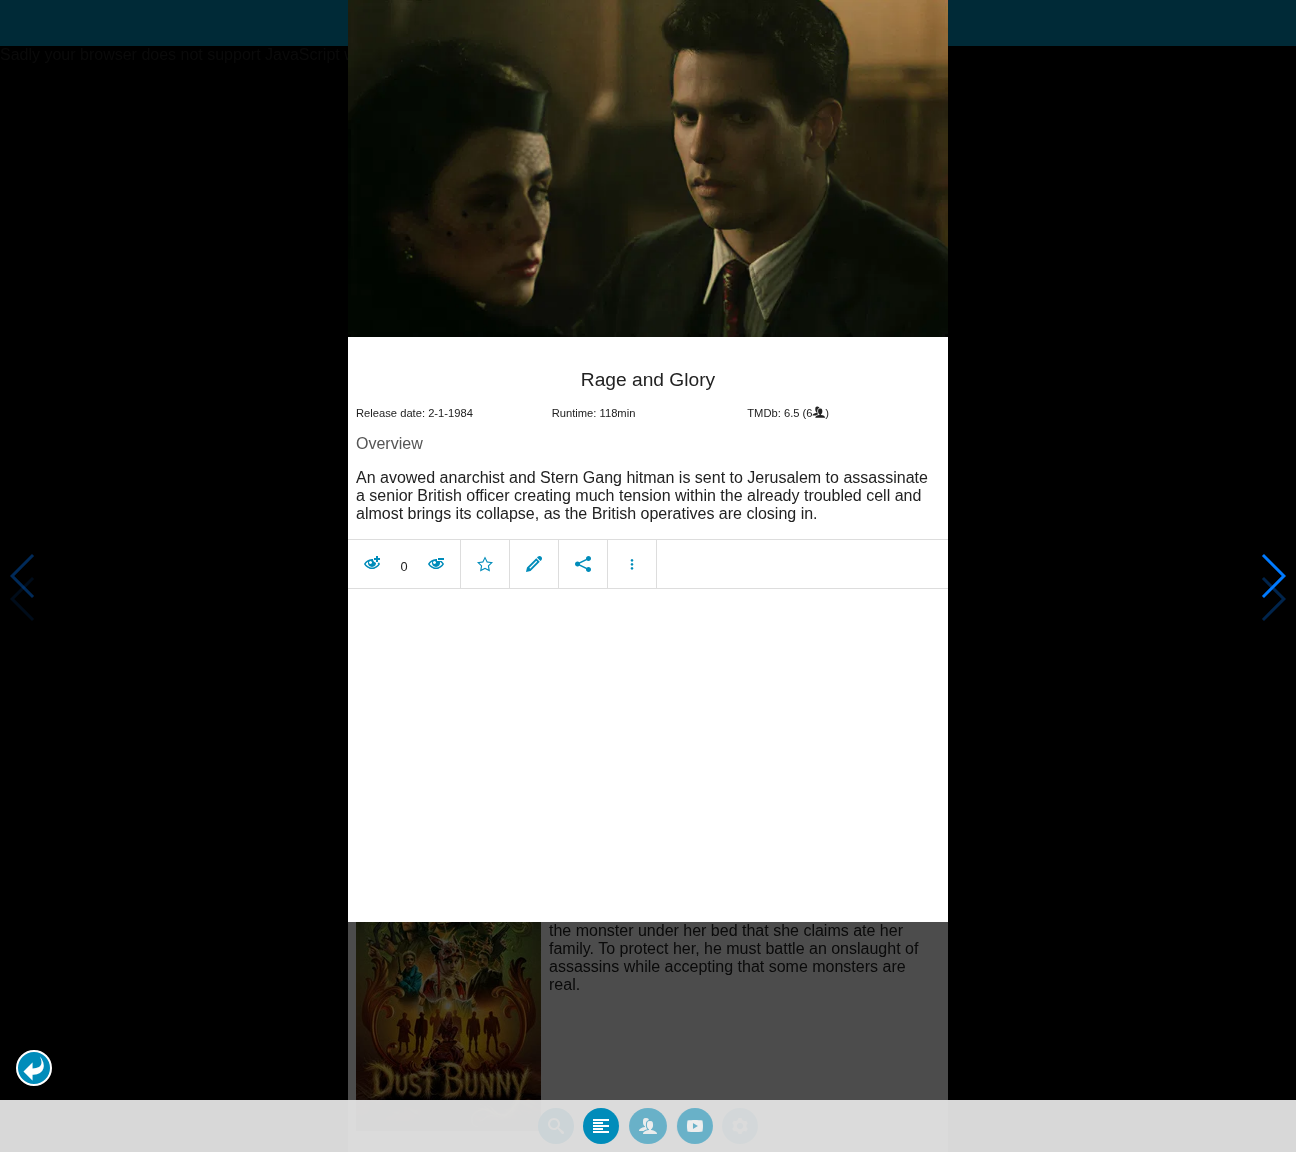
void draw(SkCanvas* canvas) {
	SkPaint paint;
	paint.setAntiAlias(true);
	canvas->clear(0xffffffff);
	canvas->drawImageRect(SkImages::DeferredFromEncodedData(SkData::MakeFromFileName("img1.png")), SkRect::MakeXYWH(0, 0, 1296, 1152), SkSamplingOptions());
}
